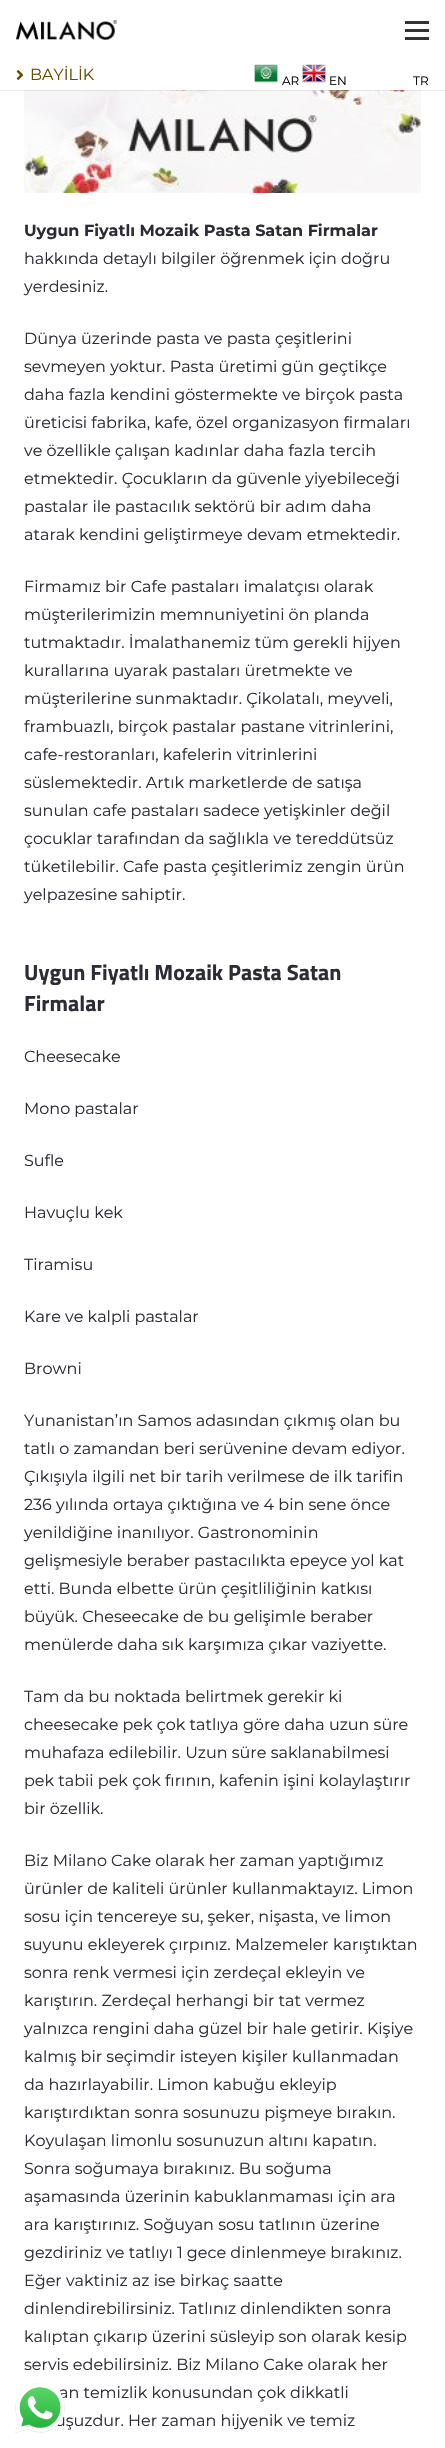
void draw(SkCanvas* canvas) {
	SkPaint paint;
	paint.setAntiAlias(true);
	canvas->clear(0xffffffff);
	canvas->drawImageRect(SkImages::DeferredFromEncodedData(SkData::MakeFromFileName("img1.png")), SkRect::MakeXYWH(16, 20, 101, 20), SkSamplingOptions());
	paint.setColor(0xff333333);
	canvas->drawRect(SkRect::MakeXYWH(405, 29, 24, 3), paint);
	canvas->drawRect(SkRect::MakeXYWH(405, 21, 24, 3), paint);
	canvas->drawRect(SkRect::MakeXYWH(405, 37, 24, 3), paint);
	canvas->drawImageRect(SkImages::DeferredFromEncodedData(SkData::MakeFromFileName("img5.png")), SkRect::MakeXYWH(24, 90, 397, 103), SkSamplingOptions());
	paint.setColor(0x14000000);
	canvas->drawRect(SkRect::MakeXYWH(0, 90, 445, 1), paint);
	canvas->drawImageRect(SkImages::DeferredFromEncodedData(SkData::MakeFromFileName("img2.png")), SkRect::MakeXYWH(16, 70, 8, 10), SkSamplingOptions());
	SkFont f1(fontMgr->matchFamilyStyle("Montserrat", SkFontStyle::Normal()), 16);
	f1.setSubpixel(true);
	paint.setColor(0xff664d00);
	canvas->drawString("BAYİLİK", 30, 80, f1, paint);
	canvas->drawImageRect(SkImages::DeferredFromEncodedData(SkData::MakeFromFileName("img3.png")), SkRect::MakeXYWH(254, 64, 24, 19), SkSamplingOptions());
	SkFont f2(fontMgr->matchFamilyStyle("Montserrat", SkFontStyle::Normal()), 12);
	f2.setSubpixel(true);
	paint.setColor(0xff000000);
	canvas->drawString("AR", 282, 85, f2, paint);
	canvas->drawImageRect(SkImages::DeferredFromEncodedData(SkData::MakeFromFileName("img4.png")), SkRect::MakeXYWH(302, 64, 24, 19), SkSamplingOptions());
	canvas->drawString("EN", 329, 85, f2, paint);
	canvas->drawString("TR", 413, 85, f2, paint);
	SkFont f3(fontMgr->matchFamilyStyle("Montserrat", SkFontStyle::Bold()), 16);
	f3.setSubpixel(true);
	paint.setColor(0xff2b2c36);
	canvas->drawString("Uygun Fiyatlı Mozaik Pasta Satan Firmalar", 24, 236, f3, paint);
	canvas->drawString("hakkında detaylı bilgiler öğrenmek için doğru", 24, 264, f1, paint);
	canvas->drawString("yerdesiniz.", 24, 292, f1, paint);
	canvas->drawString("Dünya üzerinde pasta ve pasta çeşitlerini", 24, 344, f1, paint);
	canvas->drawString("sevmeyen yoktur. Pasta üretimi gün geçtikçe", 24, 372, f1, paint);
	canvas->drawString("daha fazla kendini göstermekte ve birçok pasta", 24, 400, f1, paint);
	canvas->drawString("üreticisi fabrika, kafe, özel organizasyon firmaları", 24, 428, f1, paint);
	canvas->drawString("ve özellikle çalışan kadınlar daha fazla tercih", 24, 456, f1, paint);
	canvas->drawString("etmektedir. Çocukların da güvenle yiyebileceği", 24, 484, f1, paint);
	canvas->drawString("pastalar ile pastacılık sektörü bir adım daha", 24, 512, f1, paint);
	canvas->drawString("atarak kendini geliştirmeye devam etmektedir.", 24, 540, f1, paint);
	canvas->drawString("Firmamız bir Cafe pastaları imalatçısı olarak", 24, 592, f1, paint);
	canvas->drawString("müşterilerimizin memnuniyetini ön planda", 24, 620, f1, paint);
	canvas->drawString("tutmaktadır. İmalathanemiz tüm gerekli hijyen", 24, 648, f1, paint);
	canvas->drawString("kurallarına uyarak pastaları üretmekte ve", 24, 676, f1, paint);
	canvas->drawString("müşterilerine sunmaktadır. Çikolatalı, meyveli,", 24, 704, f1, paint);
	canvas->drawString("frambuazlı, birçok pastalar pastane vitrinlerini,", 24, 732, f1, paint);
	canvas->drawString("cafe-restoranları, kafelerin vitrinlerini", 24, 760, f1, paint);
	canvas->drawString("süslemektedir. Artık marketlerde de satışa", 24, 788, f1, paint);
	canvas->drawString("sunulan cafe pastaları sadece yetişkinler değil", 24, 816, f1, paint);
	canvas->drawString("çocuklar tarafından da sağlıkla ve tereddütsüz", 24, 844, f1, paint);
	canvas->drawString("tüketilebilir. Cafe pasta çeşitlerimiz zengin ürün", 24, 872, f1, paint);
	canvas->drawString("yelpazesine sahiptir.", 24, 900, f1, paint);
	SkFont f4(fontMgr->matchFamilyStyle("Titillium Web", SkFontStyle::Bold()), 22);
	f4.setSubpixel(true);
	canvas->drawString("Uygun Fiyatlı Mozaik Pasta Satan", 24, 980, f4, paint);
	canvas->drawString("Firmalar", 24, 1011, f4, paint);
	canvas->drawString("Cheesecake", 24, 1062, f1, paint);
	canvas->drawString("Mono pastalar", 24, 1114, f1, paint);
	canvas->drawString("Sufle", 24, 1166, f1, paint);
	canvas->drawString("Havuçlu kek", 24, 1218, f1, paint);
	canvas->drawString("Tiramisu", 24, 1270, f1, paint);
	canvas->drawString("Kare ve kalpli pastalar", 24, 1322, f1, paint);
	canvas->drawString("Browni", 24, 1374, f1, paint);
	canvas->drawString("Yunanistan’ın Samos adasından çıkmış olan bu", 24, 1426, f1, paint);
	canvas->drawString("tatlı o zamandan beri serüvenine devam ediyor.", 24, 1454, f1, paint);
	canvas->drawString("Çıkışıyla ilgili net bir tarih verilmese de ilk tarifin", 24, 1482, f1, paint);
	canvas->drawString("236 yılında ortaya çıktığına ve 4 bin sene önce", 24, 1510, f1, paint);
	canvas->drawString("yenildiğine inanılıyor. Gastronominin", 24, 1538, f1, paint);
	canvas->drawString("gelişmesiyle beraber pastacılıkta epeyce yol kat", 24, 1566, f1, paint);
	canvas->drawString("etti. Bunda elbette ürün çeşitliliğinin katkısı", 24, 1594, f1, paint);
	canvas->drawString("büyük. Cheseecake de bu gelişimle beraber", 24, 1622, f1, paint);
	canvas->drawString("menülerde daha sık karşımıza çıkar vaziyette.", 24, 1650, f1, paint);
	canvas->drawString("Tam da bu noktada belirtmek gerekir ki", 24, 1702, f1, paint);
	canvas->drawString("cheesecake pek çok tatlıya göre daha uzun süre", 24, 1730, f1, paint);
	canvas->drawString("muhafaza edilebilir. Uzun süre saklanabilmesi", 24, 1758, f1, paint);
	canvas->drawString("pek tabii pek çok fırının, kafenin işini kolaylaştırır", 24, 1786, f1, paint);
	canvas->drawString("bir özellik.", 24, 1814, f1, paint);
	canvas->drawString("Biz Milano Cake olarak her zaman yaptığımız", 24, 1866, f1, paint);
	canvas->drawString("ürünler de kaliteli ürünler kullanmaktayız. Limon", 24, 1894, f1, paint);
	canvas->drawString("sosu için tencereye su, şeker, nişasta, ve limon", 24, 1922, f1, paint);
	canvas->drawString("suyunu ekleyerek çırpınız. Malzemeler karıştıktan", 24, 1950, f1, paint);
	canvas->drawString("sonra renk vermesi için zerdeçal ekleyin ve", 24, 1978, f1, paint);
	canvas->drawString("karıştırın. Zerdeçal herhangi bir tat vermez", 24, 2006, f1, paint);
	canvas->drawString("yalnızca rengini daha güzel bir hale getirir. Kişiye", 24, 2034, f1, paint);
	canvas->drawString("kalmış bir seçimdir isteyen kişiler kullanmadan", 24, 2062, f1, paint);
	canvas->drawString("da hazırlayabilir. Limon kabuğu ekleyip", 24, 2090, f1, paint);
	canvas->drawString("karıştırdıktan sonra sosunuzu pişmeye bırakın.", 24, 2118, f1, paint);
	canvas->drawString("Koyulaşan limonlu sosunuzun altını kapatın.", 24, 2146, f1, paint);
	canvas->drawString("Sonra soğumaya bırakınız. Bu soğuma", 24, 2174, f1, paint);
	canvas->drawString("aşamasında üzerinin kabuklanmaması için ara", 24, 2202, f1, paint);
	canvas->drawString("ara karıştırınız. Soğuyan sosu tatlının üzerine", 24, 2230, f1, paint);
	canvas->drawString("gezdiriniz ve tatlıyı 1 gece dinlenmeye bırakınız.", 24, 2258, f1, paint);
	canvas->drawString("Eğer vaktiniz az ise birkaç saatte", 24, 2286, f1, paint);
	canvas->drawString("dinlendirebilirsiniz. Tatlınız dinlendikten sonra", 24, 2314, f1, paint);
	canvas->drawString("kalıptan çıkarıp üzerini süsleyip son olarak kesip", 24, 2342, f1, paint);
	canvas->drawString("servis edebilirsiniz. Biz Milano Cake olarak her", 24, 2370, f1, paint);
	canvas->drawString("an temizlik konusundan çok dikkatli", 59, 2398, f1, paint);
	canvas->drawString("uşuzdur. Her zaman hijyenik ve temiz", 55, 2426, f1, paint);
	canvas->drawImageRect(SkImages::DeferredFromEncodedData(SkData::MakeFromFileName("img6.png")), SkRect::MakeXYWH(15, 2383, 50, 50), SkSamplingOptions());
}
